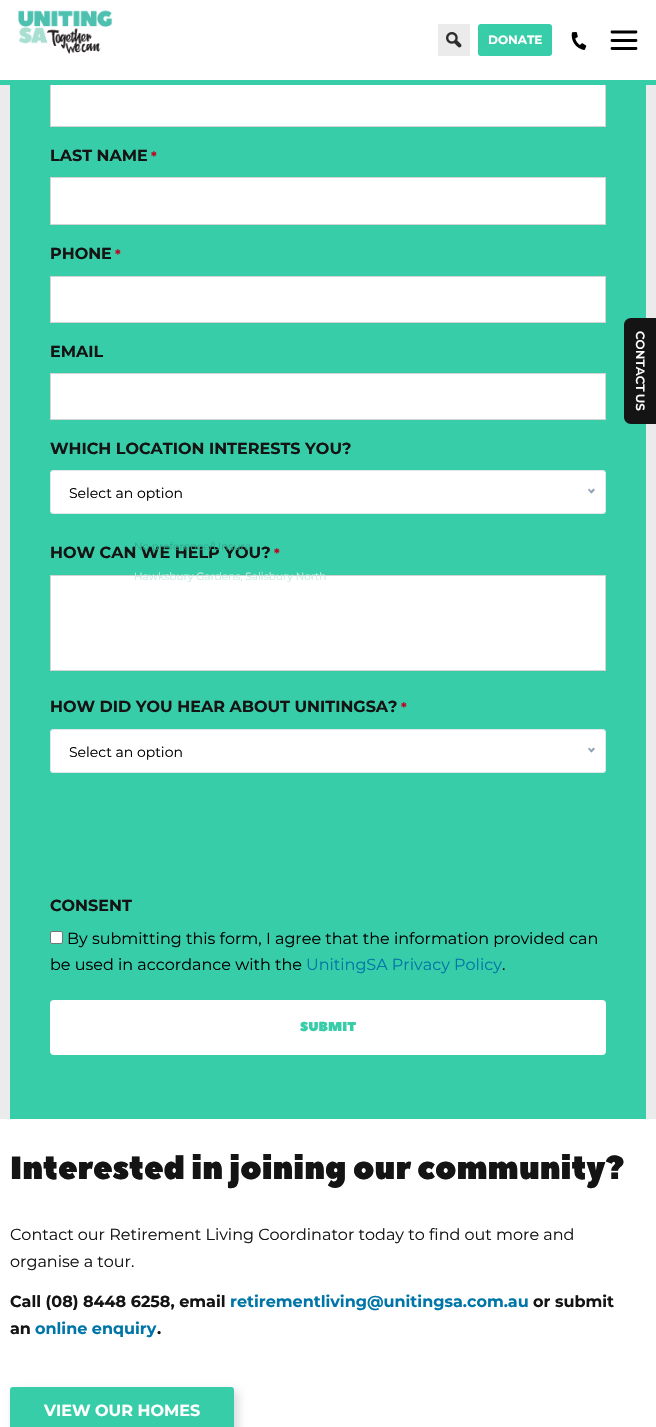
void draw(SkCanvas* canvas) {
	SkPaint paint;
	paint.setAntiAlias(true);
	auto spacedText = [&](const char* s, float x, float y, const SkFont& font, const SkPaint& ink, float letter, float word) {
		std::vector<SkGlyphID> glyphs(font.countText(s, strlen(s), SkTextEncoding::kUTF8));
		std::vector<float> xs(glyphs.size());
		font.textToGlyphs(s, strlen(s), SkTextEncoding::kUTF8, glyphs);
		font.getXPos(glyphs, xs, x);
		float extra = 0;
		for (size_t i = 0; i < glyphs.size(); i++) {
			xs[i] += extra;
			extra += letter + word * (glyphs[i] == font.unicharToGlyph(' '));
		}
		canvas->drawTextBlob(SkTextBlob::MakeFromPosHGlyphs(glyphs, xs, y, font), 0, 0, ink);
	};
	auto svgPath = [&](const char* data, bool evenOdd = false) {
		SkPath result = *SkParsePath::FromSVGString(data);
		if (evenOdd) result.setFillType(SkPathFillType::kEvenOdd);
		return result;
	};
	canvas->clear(0xffffffff);
	paint.setColor(0xffebebeb);
	canvas->drawRect(SkRect::MakeXYWH(0, 85, 656, 1034), paint);
	paint.setColor(0xff37cda8);
	canvas->drawRect(SkRect::MakeXYWH(10, 85, 636, 1034), paint);
	paint.setColor(0xffffffff);
	canvas->drawRect(SkRect::MakeXYWH(51, 85, 554, 41), paint);
	paint.setStroke(true);
	paint.setStrokeWidth(1);
	paint.setColor(0xffd3d3d3);
	canvas->drawRect(SkRect::MakeXYWH(50.5, 79.5, 555, 47), paint);
	paint.setStroke(false);
	paint.setColor(0xffffffff);
	canvas->drawRect(SkRect::MakeXYWH(50, 79, 556, 1), paint);
	paint.setColor(0xff37cda8);
	canvas->drawRect(SkRect::MakeXYWH(0, 80, 656, 5), paint);
	canvas->drawImageRect(SkImages::DeferredFromEncodedData(SkData::MakeFromFileName("img1.png")), SkRect::MakeXYWH(18, 10, 95, 44), SkSamplingOptions());
	paint.setColor(0xffebebeb);
	canvas->drawRect(SkRect::MakeXYWH(438, 24, 32, 32), paint);
	canvas->drawImageRect(SkImages::DeferredFromEncodedData(SkData::MakeFromFileName("img2.png")), SkRect::MakeXYWH(446, 32, 16, 16), SkSamplingOptions());
	paint.setColor(0xff37cda8);
	canvas->drawRoundRect(SkRect::MakeXYWH(478, 24, 74, 32), 3, 3, paint);
	SkFont f1(fontMgr->matchFamilyStyle("Montserrat", SkFontStyle::Bold()), 12);
	f1.setSubpixel(true);
	paint.setColor(0xffffffff);
	canvas->drawString("DONATE", 488, 44, f1, paint);
	canvas->drawImageRect(SkImages::DeferredFromEncodedData(SkData::MakeFromFileName("img3.png")), SkRect::MakeXYWH(571, 32, 16, 18), SkSamplingOptions());
	paint.setStroke(true);
	paint.setStrokeWidth(2.8);
	paint.setStrokeCap(SkPaint::kRound_Cap);
	paint.setColor(0xff000000);
	canvas->drawPath(svgPath("M612 32H636M612 40.5H636M612 48.5H636"), paint);
	SkFont f2(fontMgr->matchFamilyStyle("Montserrat", SkFontStyle::Bold()), 16);
	f2.setSubpixel(true);
	paint.setStroke(false);
	paint.setColor(0xff141414);
	canvas->drawString("LAST NAME", 50, 161, f2, paint);
	SkFont f3(fontMgr->matchFamilyStyle("Montserrat", SkFontStyle::Bold()), 13);
	f3.setSubpixel(true);
	paint.setColor(0xffbf0625);
	canvas->drawString("*", 151, 161, f3, paint);
	paint.setColor(0xffffffff);
	canvas->drawRect(SkRect::MakeXYWH(50.5, 177.5, 555, 47), paint);
	paint.setStroke(true);
	paint.setStrokeWidth(1);
	paint.setStrokeCap(SkPaint::kButt_Cap);
	paint.setColor(0xffd3d3d3);
	canvas->drawRect(SkRect::MakeXYWH(50.5, 177.5, 555, 47), paint);
	paint.setStroke(false);
	paint.setColor(0xff141414);
	canvas->drawString("PHONE", 50, 259, f2, paint);
	paint.setColor(0xffbf0625);
	canvas->drawString("*", 115, 259, f3, paint);
	paint.setColor(0xffffffff);
	canvas->drawRect(SkRect::MakeXYWH(50.5, 276.5, 555, 46), paint);
	paint.setStroke(true);
	paint.setColor(0xffd3d3d3);
	canvas->drawRect(SkRect::MakeXYWH(50.5, 276.5, 555, 46), paint);
	paint.setStroke(false);
	paint.setColor(0xff141414);
	canvas->drawString("EMAIL", 50, 357, f2, paint);
	paint.setColor(0xffffffff);
	canvas->drawRect(SkRect::MakeXYWH(50.5, 373.5, 555, 46), paint);
	paint.setStroke(true);
	paint.setColor(0xffd3d3d3);
	canvas->drawRect(SkRect::MakeXYWH(50.5, 373.5, 555, 46), paint);
	paint.setStroke(false);
	paint.setColor(0xff141414);
	canvas->drawString("WHICH LOCATION INTERESTS YOU?", 50, 454, f2, paint);
	paint.setColor(0xffffffff);
	canvas->drawRoundRect(SkRect::MakeXYWH(50.5, 470.5, 555, 43), 2.5, 2.5, paint);
	paint.setStroke(true);
	paint.setColor(0xffe0e7ee);
	canvas->drawRoundRect(SkRect::MakeXYWH(50.5, 470.5, 555, 43), 2.5, 2.5, paint);
	SkFont f4(fontMgr->matchFamilyStyle("Montserrat", SkFontStyle::Normal()), 14);
	f4.setSubpixel(true);
	paint.setStroke(false);
	paint.setColor(0xff000000);
	canvas->drawString("Select an option", 69, 498, f4, paint);
	paint.setColor(0xff90a1b5);
	canvas->drawPath(svgPath("M593.5 488.5L595 490L591.5 493.5L590 492Z"), paint);
	canvas->drawPath(svgPath("M589 488.5L592.5 492L591.5 493.5L588 490Z"), paint);
	paint.setColor(0xff141414);
	canvas->drawString("HOW CAN WE HELP YOU?", 50, 558, f2, paint);
	SkFont f5(fontMgr->matchFamilyStyle("Montserrat", SkFontStyle::Normal()), 10.5);
	f5.setSubpixel(true);
	paint.setColor(0xff30a689);
	canvas->drawString("No preference/Unsure", 134, 550, f5, paint);
	paint.setColor(0xffffffff);
	canvas->drawRect(SkRect::MakeXYWH(50.5, 575.5, 555, 95), paint);
	paint.setStroke(true);
	paint.setColor(0xffd3d3d3);
	canvas->drawRect(SkRect::MakeXYWH(50.5, 575.5, 555, 95), paint);
	paint.setStroke(false);
	paint.setColor(0xffcaece4);
	canvas->drawString("Hawksbury Gardens, Salisbury North", 134, 580, f5, paint);
	paint.setColor(0xffbf0625);
	canvas->drawString("*", 274, 558, f3, paint);
	paint.setColor(0xff141414);
	canvas->drawString("HOW DID YOU HEAR ABOUT UNITINGSA?", 50, 712, f2, paint);
	paint.setColor(0xffbf0625);
	canvas->drawString("*", 401, 712, f3, paint);
	paint.setColor(0xffffffff);
	canvas->drawRoundRect(SkRect::MakeXYWH(50.5, 729.5, 555, 43), 2.5, 2.5, paint);
	paint.setStroke(true);
	paint.setColor(0xffe0e7ee);
	canvas->drawRoundRect(SkRect::MakeXYWH(50.5, 729.5, 555, 43), 2.5, 2.5, paint);
	paint.setStroke(false);
	paint.setColor(0xff000000);
	canvas->drawString("Select an option", 69, 757, f4, paint);
	paint.setColor(0xff90a1b5);
	canvas->drawPath(svgPath("M593.5 747.5L595 749L591.5 752.5L590 751Z"), paint);
	canvas->drawPath(svgPath("M589 747.5L592.5 751L591.5 752.5L588 749Z"), paint);
	paint.setColor(0xff141414);
	canvas->drawString("CONSENT", 50, 911, f2, paint);
	paint.setColor(0xffffffff);
	canvas->drawRoundRect(SkRect::MakeXYWH(50.5, 931.5, 12, 12), 1.5, 1.5, paint);
	paint.setStroke(true);
	paint.setColor(0xff767676);
	canvas->drawRoundRect(SkRect::MakeXYWH(50.5, 931.5, 12, 12), 1.5, 1.5, paint);
	SkFont f6(fontMgr->matchFamilyStyle("Montserrat", SkFontStyle::Normal()), 16);
	f6.setSubpixel(true);
	paint.setStroke(false);
	paint.setColor(0xff000000);
	canvas->drawString("By submitting this form, I agree that the information provided can", 67, 944, f6, paint);
	canvas->drawString("be used in accordance with the", 50, 970, f6, paint);
	paint.setColor(0xff0076a8);
	canvas->drawString("UnitingSA Privacy Policy", 306, 970, f6, paint);
	paint.setColor(0xff000000);
	canvas->drawString(".", 502, 970, f6, paint);
	paint.setColor(0xffffffff);
	canvas->drawRoundRect(SkRect::MakeXYWH(50, 1000, 556, 55), 4, 4, paint);
	SkFont f7(fontMgr->matchFamilyStyle("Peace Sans", SkFontStyle::Normal()), 13);
	f7.setSubpixel(true);
	paint.setColor(0xff37cda8);
	canvas->drawString("SUBMIT", 300, 1031, f7, paint);
	SkFont f8(fontMgr->matchFamilyStyle("Peace Sans", SkFontStyle::Normal()), 32);
	f8.setSubpixel(true);
	paint.setColor(0xff141414);
	canvas->drawString("Interested in joining our community?", 10, 1179, f8, paint);
	canvas->drawString("Contact our Retirement Living Coordinator today to find out more and", 10, 1240, f6, paint);
	canvas->drawString("organise a tour.", 10, 1267, f6, paint);
	canvas->drawString("Call (08) 8448 6258, email", 10, 1307, f2, paint);
	paint.setColor(0xff0076a8);
	canvas->drawString("retirementliving@unitingsa.com.au", 230, 1307, f2, paint);
	paint.setColor(0xff141414);
	canvas->drawString("or submit", 533, 1307, f2, paint);
	canvas->drawString("an", 10, 1334, f2, paint);
	paint.setColor(0xff0076a8);
	canvas->drawString("online enquiry", 35, 1334, f2, paint);
	paint.setColor(0xff141414);
	canvas->drawString(".", 157, 1334, f2, paint);
	paint.setColor(0x26000000);
	paint.setMaskFilter(SkMaskFilter::MakeBlur(kNormal_SkBlurStyle, 5));
	canvas->drawRoundRect(SkRect::MakeXYWH(14, 1391, 224, 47), 3, 3, paint);
	paint.setMaskFilter(nullptr);
	paint.setColor(0xff37cda8);
	canvas->drawRoundRect(SkRect::MakeXYWH(10, 1387, 224, 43), 3, 3, paint);
	paint.setColor(0xffffffff);
	canvas->drawString("VIEW OUR HOMES", 44, 1416, f2, paint);
	paint.setColor(0xff141414);
	canvas->drawPath(svgPath("M631 318H656V424H631C627 424 624 421 624 417V325C624 321 627 318 631 318Z"), paint);
	SkFont f9(fontMgr->matchFamilyStyle("Montserrat", SkFontStyle(600, SkFontStyle::kNormal_Width, SkFontStyle::kUpright_Slant)), 12);
	f9.setSubpixel(true);
	paint.setColor(0xffffffff);
	canvas->save();
	canvas->rotate(90, 636, 331);
	spacedText("CONTACT US", 636, 331, f9, paint, 0, -1);
	canvas->restore();
}
